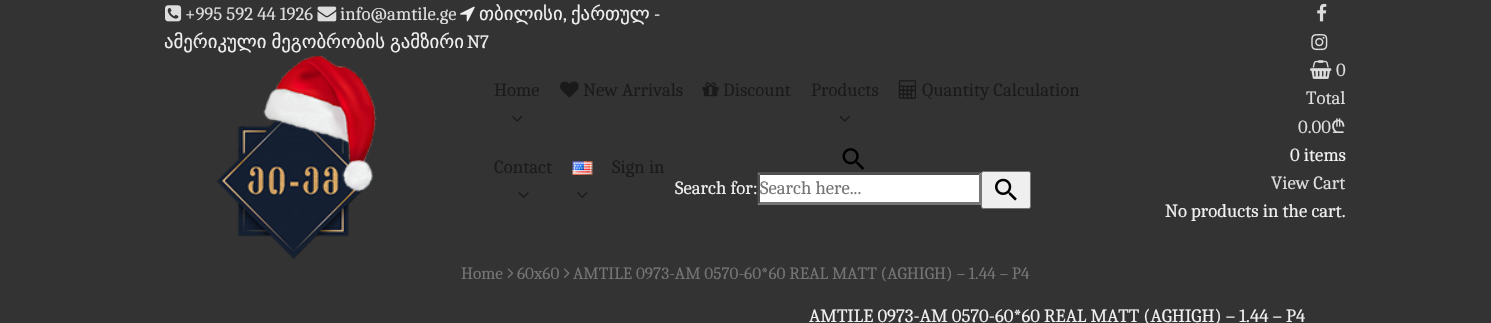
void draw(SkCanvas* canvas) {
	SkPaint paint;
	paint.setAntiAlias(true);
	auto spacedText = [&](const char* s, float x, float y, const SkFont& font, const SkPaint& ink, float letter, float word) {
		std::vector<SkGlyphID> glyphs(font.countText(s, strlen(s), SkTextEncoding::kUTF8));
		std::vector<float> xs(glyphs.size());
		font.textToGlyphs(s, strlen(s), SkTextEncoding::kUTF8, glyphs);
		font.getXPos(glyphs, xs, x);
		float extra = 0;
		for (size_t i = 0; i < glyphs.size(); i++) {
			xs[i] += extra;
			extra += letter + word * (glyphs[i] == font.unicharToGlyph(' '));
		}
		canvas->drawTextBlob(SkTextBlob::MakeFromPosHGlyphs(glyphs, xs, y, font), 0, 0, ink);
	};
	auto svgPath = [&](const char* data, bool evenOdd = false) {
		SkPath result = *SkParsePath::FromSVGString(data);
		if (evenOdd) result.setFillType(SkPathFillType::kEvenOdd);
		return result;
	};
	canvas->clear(0xff333333);
	canvas->drawImageRect(SkImages::DeferredFromEncodedData(SkData::MakeFromFileName("img1.png")), SkRect::MakeXYWH(460, 6, 15, 16), SkSamplingOptions());
	SkFont f1(fontMgr->matchFamilyStyle("DejaVu Sans", SkFontStyle::Normal()), 18.75);
	f1.setSubpixel(true);
	paint.setColor(0xfff0f0f0);
	canvas->drawString("თბილისი", 479, 20, f1, paint);
	canvas->drawString("ქართულ", 571, 20, f1, paint);
	SkFont f2(fontMgr->matchFamilyStyle("Caladea", SkFontStyle::Normal()), 18.75);
	f2.setSubpixel(true);
	canvas->drawString("-", 654, 20, f2, paint);
	canvas->drawString(",", 563, 20, f2, paint);
	spacedText("ამერიკული მეგობრობის გამზირი", 164, 48, f1, paint, 0, -1);
	canvas->drawString("N7", 467, 48, f2, paint);
	canvas->drawImageRect(SkImages::DeferredFromEncodedData(SkData::MakeFromFileName("img2.png")), SkRect::MakeXYWH(165, 5, 17, 17), SkSamplingOptions());
	paint.setColor(0xffdddddd);
	canvas->drawString("+995 592 44 1926", 185, 20, f2, paint);
	canvas->drawImageRect(SkImages::DeferredFromEncodedData(SkData::MakeFromFileName("img3.png")), SkRect::MakeXYWH(317, 6, 20, 16), SkSamplingOptions());
	canvas->drawString("info@amtile.ge", 340, 20, f2, paint);
	canvas->drawImageRect(SkImages::DeferredFromEncodedData(SkData::MakeFromFileName("img4.png")), SkRect::MakeXYWH(1317, 3, 10, 19), SkSamplingOptions());
	canvas->drawImageRect(SkImages::DeferredFromEncodedData(SkData::MakeFromFileName("img5.png")), SkRect::MakeXYWH(1311, 34, 17, 17), SkSamplingOptions());
	canvas->drawImageRect(SkImages::DeferredFromEncodedData(SkData::MakeFromFileName("img6.png")), SkRect::MakeXYWH(216, 56, 161, 203), SkSamplingOptions());
	paint.setColor(0xff1a1a1a);
	canvas->drawString("Home", 494, 96, f2, paint);
	canvas->drawImageRect(SkImages::DeferredFromEncodedData(SkData::MakeFromFileName("img7.png")), SkRect::MakeXYWH(512, 116, 11, 6), SkSamplingOptions());
	canvas->drawImageRect(SkImages::DeferredFromEncodedData(SkData::MakeFromFileName("img8.png")), SkRect::MakeXYWH(560, 81, 19, 17), SkSamplingOptions());
	canvas->drawString("New Arrivals", 583, 96, f2, paint);
	canvas->drawImageRect(SkImages::DeferredFromEncodedData(SkData::MakeFromFileName("img9.png")), SkRect::MakeXYWH(702, 82, 17, 15), SkSamplingOptions());
	canvas->drawString("Discount", 723, 96, f2, paint);
	canvas->drawString("Products", 811, 96, f2, paint);
	canvas->drawImageRect(SkImages::DeferredFromEncodedData(SkData::MakeFromFileName("img10.png")), SkRect::MakeXYWH(839, 116, 11, 6), SkSamplingOptions());
	canvas->drawImageRect(SkImages::DeferredFromEncodedData(SkData::MakeFromFileName("img11.png")), SkRect::MakeXYWH(898, 80, 18, 19), SkSamplingOptions());
	canvas->drawString("Quantity Calculation", 922, 96, f2, paint);
	canvas->drawString("Contact", 494, 173, f2, paint);
	canvas->drawImageRect(SkImages::DeferredFromEncodedData(SkData::MakeFromFileName("img12.png")), SkRect::MakeXYWH(518, 192, 11, 6), SkSamplingOptions());
	canvas->drawImageRect(SkImages::DeferredFromEncodedData(SkData::MakeFromFileName("img13.png")), SkRect::MakeXYWH(572, 161, 21, 14), SkSamplingOptions());
	canvas->drawImageRect(SkImages::DeferredFromEncodedData(SkData::MakeFromFileName("img14.png")), SkRect::MakeXYWH(577, 192, 11, 6), SkSamplingOptions());
	canvas->drawString("Sign in", 612, 173, f2, paint);
	canvas->drawImageRect(SkImages::DeferredFromEncodedData(SkData::MakeFromFileName("img15.png")), SkRect::MakeXYWH(842, 148, 23, 22), SkSamplingOptions());
	paint.setColor(0xfff0f0f0);
	canvas->drawString("Search for:", 675, 194, f2, paint);
	paint.setColor(0xffffffff);
	canvas->drawRect(SkRect::MakeXYWH(758, 173, 223, 32), paint);
	paint.setColor(0xff4f4f4f);
	canvas->drawPath(svgPath("M758 172H981L979 175H760Z"), paint);
	paint.setColor(0xff767676);
	canvas->drawPath(svgPath("M981 172.5V205L979 202.5V175Z"), paint);
	canvas->drawPath(svgPath("M981 205H758L760 202H979Z"), paint);
	paint.setColor(0xff4f4f4f);
	canvas->drawPath(svgPath("M757.5 205V172.5L760 175V202.5Z"), paint);
	paint.setColor(0xff757575);
	canvas->drawString("Search here...", 760, 194, f2, paint);
	paint.setColor(0xffefefef);
	canvas->drawRoundRect(SkRect::MakeXYWH(981.5, 171.5, 49, 37), 2, 2, paint);
	paint.setStroke(true);
	paint.setStrokeWidth(1);
	paint.setColor(0xff767676);
	canvas->drawRoundRect(SkRect::MakeXYWH(981.5, 171.5, 49, 37), 2, 2, paint);
	canvas->drawImageRect(SkImages::DeferredFromEncodedData(SkData::MakeFromFileName("img16.png")), SkRect::MakeXYWH(995, 178, 22, 23), SkSamplingOptions());
	canvas->drawImageRect(SkImages::DeferredFromEncodedData(SkData::MakeFromFileName("img17.png")), SkRect::MakeXYWH(1310, 60, 22, 19), SkSamplingOptions());
	paint.setStroke(false);
	paint.setColor(0xffdddddd);
	canvas->drawString("0", 1336, 76, f2, paint);
	canvas->drawString("Total", 1306, 104, f2, paint);
	canvas->drawString("0.00", 1298, 133, f2, paint);
	SkFont f3(fontMgr->matchFamilyStyle("Noto Sans", SkFontStyle::Normal()), 18.75);
	f3.setSubpixel(true);
	canvas->drawString("₾", 1331, 133, f3, paint);
	paint.setColor(0xfff0f0f0);
	canvas->drawString("0 items", 1290, 161, f2, paint);
	paint.setColor(0xffdddddd);
	canvas->drawString("View Cart", 1271, 189, f2, paint);
	paint.setColor(0xfff0f0f0);
	canvas->drawString("No products in the cart.", 1165, 217, f2, paint);
	SkFont f4(fontMgr->matchFamilyStyle("Caladea", SkFontStyle::Normal()), 17.25);
	f4.setSubpixel(true);
	paint.setColor(0xff757575);
	canvas->drawString("Home", 461, 279, f4, paint);
	canvas->drawImageRect(SkImages::DeferredFromEncodedData(SkData::MakeFromFileName("img18.png")), SkRect::MakeXYWH(507, 268, 7, 10), SkSamplingOptions());
	canvas->drawString("60x60", 517, 279, f4, paint);
	canvas->drawImageRect(SkImages::DeferredFromEncodedData(SkData::MakeFromFileName("img19.png")), SkRect::MakeXYWH(564, 268, 6, 10), SkSamplingOptions());
	canvas->drawString("AMTILE 0973-AM 0570-60*60 REAL MATT (AGHIGH) – 1.44 – P4", 573, 279, f4, paint);
	paint.setColor(0xfff0f0f0);
	canvas->drawString("AMTILE 0973-AM 0570-60*60 REAL MATT (AGHIGH) – 1.44 – P4", 809, 322, f2, paint);
}
